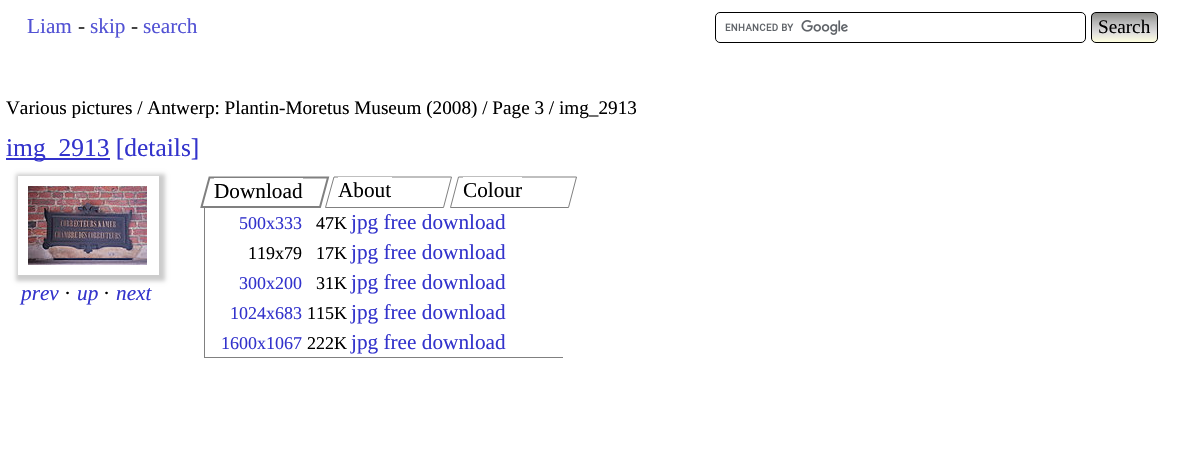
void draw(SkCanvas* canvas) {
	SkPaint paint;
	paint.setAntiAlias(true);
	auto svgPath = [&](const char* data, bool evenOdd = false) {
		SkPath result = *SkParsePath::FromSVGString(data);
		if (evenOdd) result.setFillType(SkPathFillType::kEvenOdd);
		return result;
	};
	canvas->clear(0xffffffff);
	SkFont f1(fontMgr->matchFamilyStyle("Liberation Serif", SkFontStyle::Normal()), 21.25);
	f1.setSubpixel(true);
	paint.setColor(0xff5252d4);
	canvas->drawString("Liam", 27, 33, f1, paint);
	paint.setColor(0xff262626);
	canvas->drawString("-", 78, 33, f1, paint);
	paint.setColor(0xff5252d4);
	canvas->drawString("skip", 90, 33, f1, paint);
	paint.setColor(0xff262626);
	canvas->drawString("-", 131, 33, f1, paint);
	paint.setColor(0xff5252d4);
	canvas->drawString("search", 143, 33, f1, paint);
	canvas->drawImageRect(SkImages::DeferredFromEncodedData(SkData::MakeFromFileName("img1.png")), SkRect::MakeXYWH(725, 20, 123, 15), SkSamplingOptions());
	paint.setStroke(true);
	paint.setStrokeWidth(1);
	paint.setColor(0xff000000);
	canvas->drawRoundRect(SkRect::MakeXYWH(715.5, 12.5, 370, 30), 4.5, 4.5, paint);
	canvas->save();
	canvas->clipPath(svgPath("M1096 12H1153C1156 12 1158 14 1158 17V38C1158 41 1156 43 1153 43H1096C1093 43 1091 41 1091 38V17C1091 14 1093 12 1096 12Z"), true);
	paint.setStroke(false);
	{
		const SkColor colors[] = {0xffffffe0, 0xffdedddd, 0xffb9b9b9, 0xff8c8c88};
		const float stops[] = {0, 0.33, 0.67, 1};
		const SkPoint ends[] = {{1125, 42}, {1125, 13}};
		paint.setShader(SkGradientShader::MakeLinear(ends, colors, stops, 4, SkTileMode::kClamp));
		paint.setAlpha(255);
	}
	canvas->drawRect(SkRect::MakeXYWH(1091, 13, 67, 29), paint);
	canvas->restore();
	paint.setStroke(true);
	paint.setShader(nullptr);
	paint.setColor(0xff000000);
	canvas->drawRoundRect(SkRect::MakeXYWH(1091.5, 12.5, 66, 30), 4.5, 4.5, paint);
	SkFont f2(fontMgr->matchFamilyStyle("Liberation Serif", SkFontStyle::Normal()), 19.2);
	f2.setSubpixel(true);
	paint.setStroke(false);
	canvas->drawString("Search", 1098, 33, f2, paint);
	canvas->drawString("Various pictures / Antwerp: Plantin-Moretus Museum (2008) / Page 3 / img_2913", 6, 114, f2, paint);
	paint.setColor(0xff3333cc);
	canvas->drawRect(SkRect::MakeXYWH(6, 158, 104, 2), paint);
	SkFont f3(fontMgr->matchFamilyStyle("Liberation Serif", SkFontStyle::Normal()), 25.5);
	f3.setSubpixel(true);
	canvas->drawString("img_2913 [details]", 6, 156, f3, paint);
	canvas->save();
	canvas->clipPath(svgPath("M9 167H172V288H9ZM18 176H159V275H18Z", true), true);
	paint.setColor(0x33000000);
	paint.setMaskFilter(SkMaskFilter::MakeBlur(kNormal_SkBlurStyle, 2));
	canvas->drawRect(SkRect::MakeXYWH(16, 174, 149, 107), paint);
	paint.setMaskFilter(nullptr);
	canvas->restore();
	canvas->drawImageRect(SkImages::DeferredFromEncodedData(SkData::MakeFromFileName("img2.png")), SkRect::MakeXYWH(28, 186, 119, 79), SkSamplingOptions());
	SkFont f4(fontMgr->matchFamilyStyle("Liberation Serif", SkFontStyle::Italic()), 21.25);
	f4.setSubpixel(true);
	paint.setColor(0xff3333cc);
	canvas->drawString("prev", 21, 300, f4, paint);
	paint.setColor(0xff000000);
	canvas->drawString("·", 64, 300, f1, paint);
	paint.setColor(0xff3333cc);
	canvas->drawString("up", 77, 300, f4, paint);
	paint.setColor(0xff000000);
	canvas->drawString("·", 103, 300, f1, paint);
	paint.setColor(0xff3333cc);
	canvas->drawString("next", 116, 300, f4, paint);
	paint.setStroke(true);
	paint.setStrokeWidth(2);
	paint.setColor(0xff808080);
	canvas->drawPath(svgPath("M209.5 177.5H328L320 207H201.5Z"), paint);
	paint.setStroke(false);
	paint.setColor(0xffffffff);
	canvas->drawRect(SkRect::MakeXYWH(214, 178, 89, 1), paint);
	paint.setColor(0xff000000);
	canvas->drawString("Download", 214, 198, f1, paint);
	paint.setStroke(true);
	paint.setStrokeWidth(1);
	paint.setColor(0xff808080);
	canvas->drawPath(svgPath("M334 177H451.5L443.5 207.5H325.5Z"), paint);
	paint.setStroke(false);
	paint.setColor(0xffffffff);
	canvas->drawRect(SkRect::MakeXYWH(338, 177, 54, 1), paint);
	paint.setColor(0xff000000);
	canvas->drawString("About", 338, 197, f1, paint);
	paint.setStroke(true);
	paint.setColor(0xff808080);
	canvas->drawPath(svgPath("M458.5 177H576.5L568.5 207.5H450.5Z"), paint);
	paint.setStroke(false);
	paint.setColor(0xffffffff);
	canvas->drawRect(SkRect::MakeXYWH(463, 177, 59, 1), paint);
	paint.setColor(0xff000000);
	canvas->drawString("Colour", 463, 197, f1, paint);
	paint.setColor(0xff808080);
	canvas->drawRect(SkRect::MakeXYWH(204, 357, 359, 1), paint);
	canvas->drawRect(SkRect::MakeXYWH(204, 208, 1, 150), paint);
	SkFont f5(fontMgr->matchFamilyStyle("Liberation Serif", SkFontStyle::Normal()), 18);
	f5.setSubpixel(true);
	paint.setColor(0xff3333cc);
	canvas->drawString("500x333", 239, 229, f5, paint);
	paint.setColor(0xff000000);
	canvas->drawString("47K", 316, 229, f5, paint);
	paint.setColor(0xff3333cc);
	canvas->drawString("jpg free download", 351, 229, f1, paint);
	paint.setColor(0xff000000);
	canvas->drawString("119x79", 248, 259, f5, paint);
	canvas->drawString("17K", 316, 259, f5, paint);
	paint.setColor(0xff3333cc);
	canvas->drawString("jpg free download", 351, 259, f1, paint);
	canvas->drawString("300x200", 239, 289, f5, paint);
	paint.setColor(0xff000000);
	canvas->drawString("31K", 316, 289, f5, paint);
	paint.setColor(0xff3333cc);
	canvas->drawString("jpg free download", 351, 289, f1, paint);
	canvas->drawString("1024x683", 230, 319, f5, paint);
	paint.setColor(0xff000000);
	canvas->drawString("115K", 307, 319, f5, paint);
	paint.setColor(0xff3333cc);
	canvas->drawString("jpg free download", 351, 319, f1, paint);
	canvas->drawString("1600x1067", 221, 349, f5, paint);
	paint.setColor(0xff000000);
	canvas->drawString("222K", 307, 349, f5, paint);
	paint.setColor(0xff3333cc);
	canvas->drawString("jpg free download", 351, 349, f1, paint);
}
